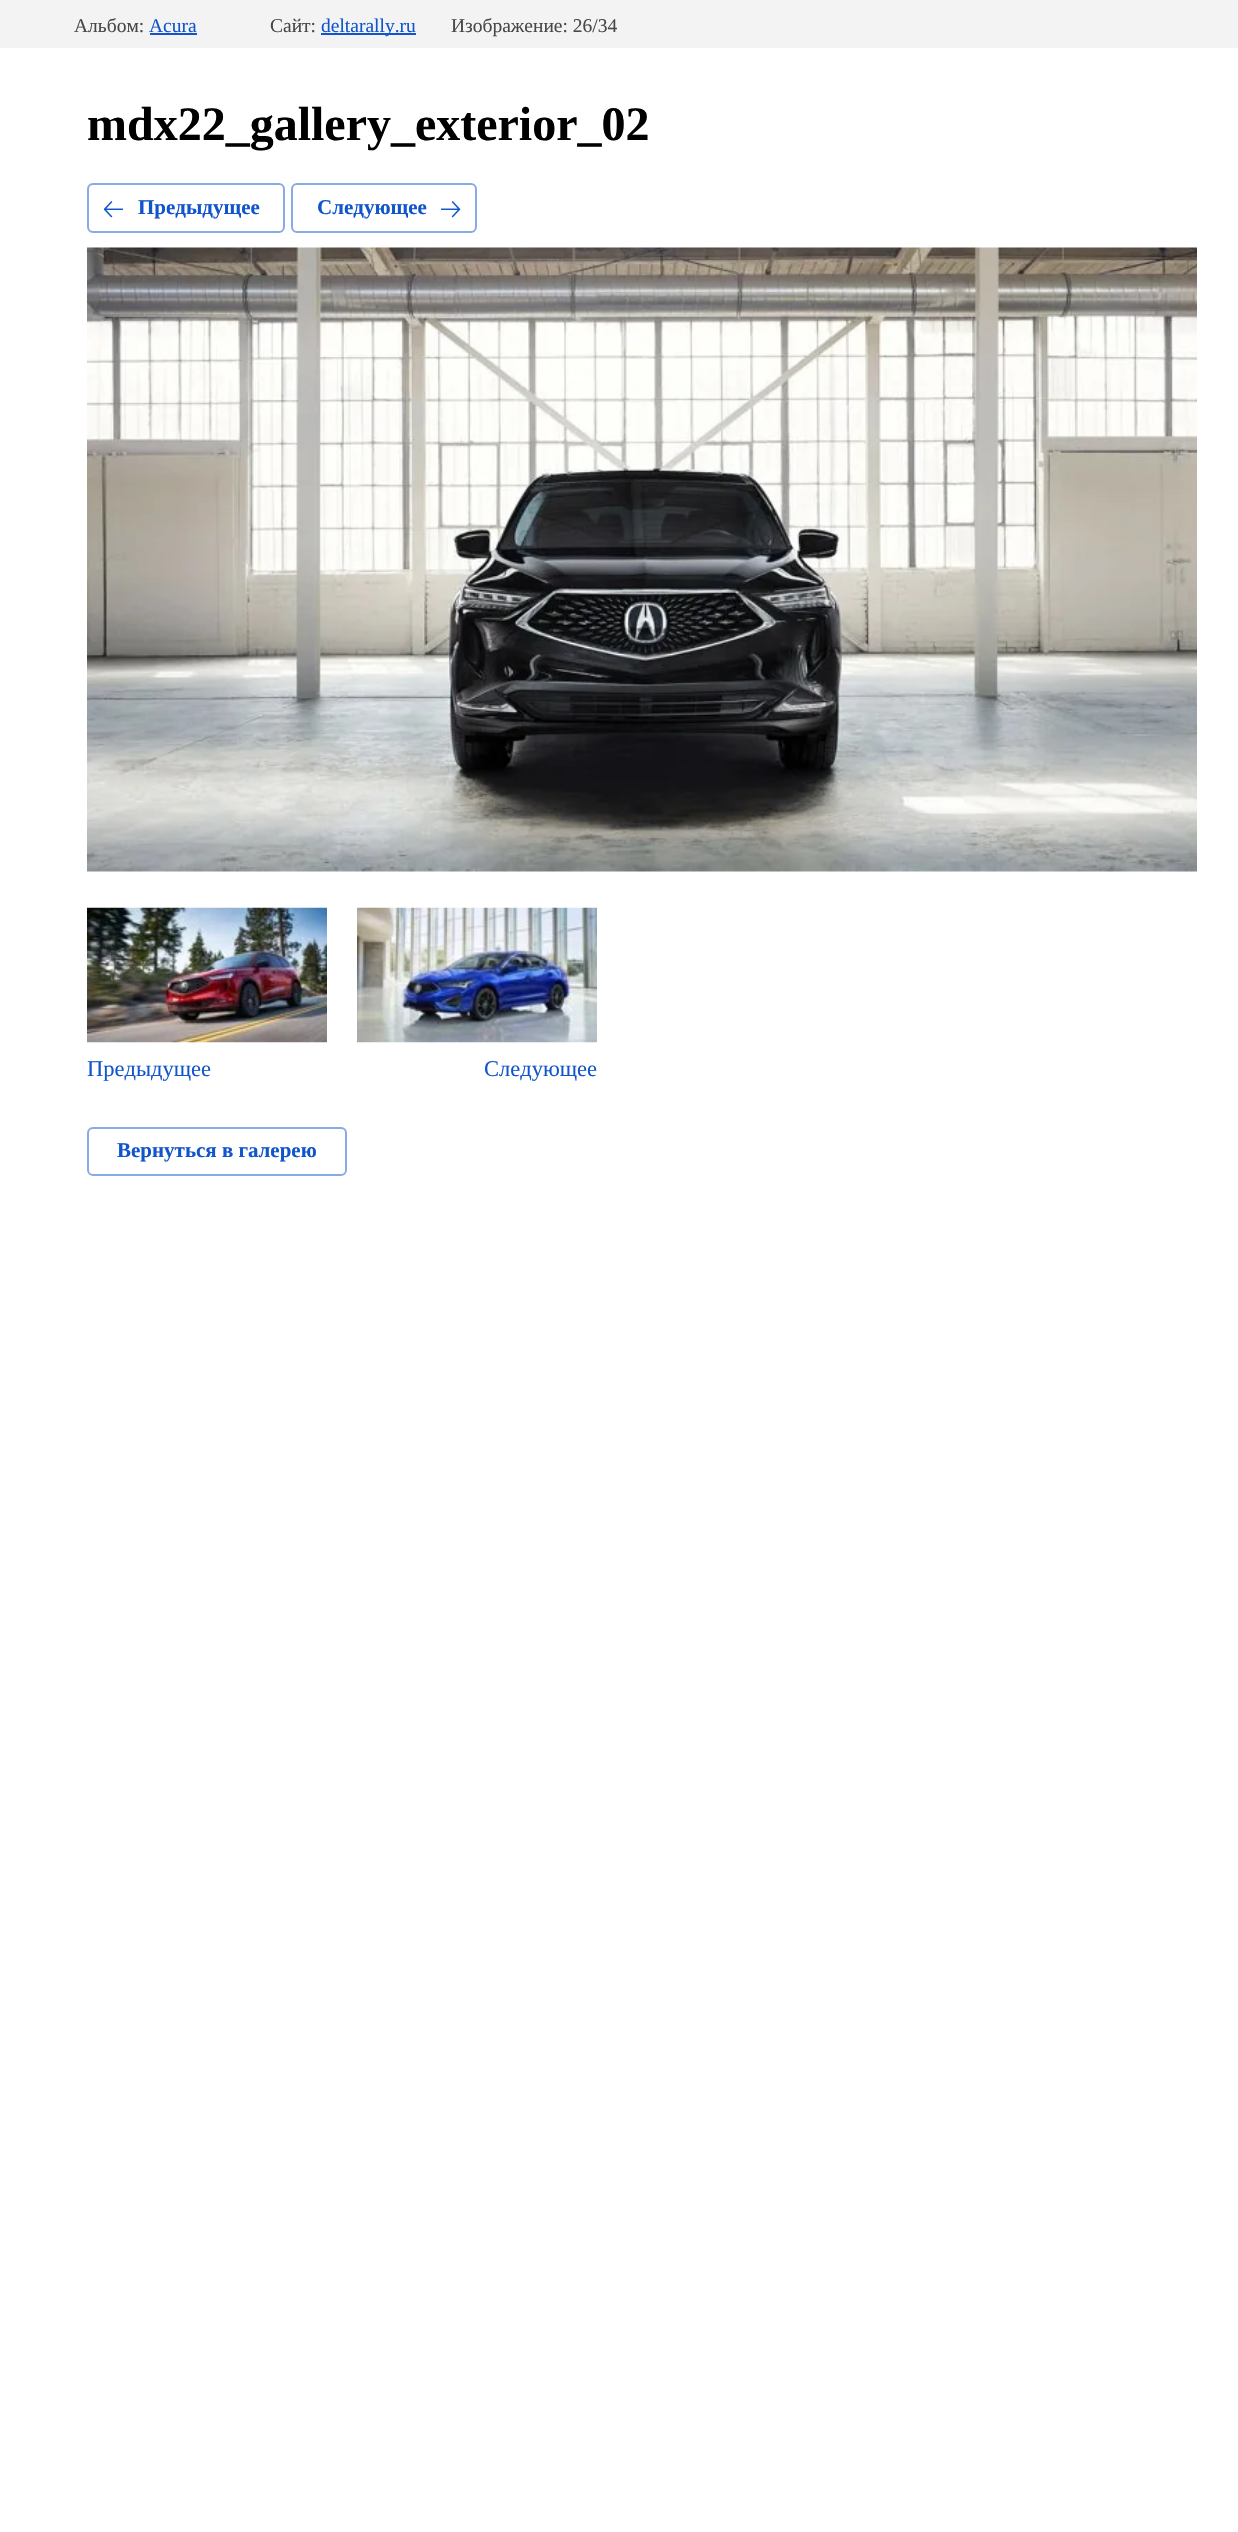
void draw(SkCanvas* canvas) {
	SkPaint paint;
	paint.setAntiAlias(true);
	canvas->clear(0xffffffff);
	paint.setColor(0xfff3f3f3);
	canvas->drawRect(SkRect::MakeXYWH(0, 0, 1238, 48), paint);
	SkFont f1(fontMgr->matchFamilyStyle("Liberation Serif", SkFontStyle::Normal()), 19.5);
	f1.setSubpixel(true);
	paint.setColor(0xff484848);
	canvas->drawString("Альбом:", 74, 32, f1, paint);
	paint.setColor(0xff1155cc);
	canvas->drawString("Acura", 149, 32, f1, paint);
	canvas->drawRect(SkRect::MakeXYWH(150, 33, 47, 2), paint);
	paint.setColor(0xff484848);
	canvas->drawString("Сайт:", 270, 32, f1, paint);
	paint.setColor(0xff1155cc);
	canvas->drawRect(SkRect::MakeXYWH(321, 33, 95, 2), paint);
	canvas->drawString("deltarally.ru", 321, 32, f1, paint);
	paint.setColor(0xff484848);
	canvas->drawString("Изображение: 26/34", 451, 32, f1, paint);
	SkFont f2(fontMgr->matchFamilyStyle("Liberation Serif", SkFontStyle::Bold()), 48);
	f2.setSubpixel(true);
	paint.setColor(0xff000000);
	canvas->drawString("mdx22_gallery_exterior_02", 87, 140, f2, paint);
	paint.setStroke(true);
	paint.setStrokeWidth(2);
	paint.setColor(0xff88aae6);
	canvas->drawRoundRect(SkRect::MakeXYWH(88, 184, 196, 48), 5, 5, paint);
	canvas->drawImageRect(SkImages::DeferredFromEncodedData(SkData::MakeFromFileName("img1.png")), SkRect::MakeXYWH(104, 201, 19, 17), SkSamplingOptions());
	SkFont f3(fontMgr->matchFamilyStyle("Liberation Serif", SkFontStyle::Bold()), 21);
	f3.setSubpixel(true);
	paint.setStroke(false);
	paint.setColor(0xff1155cc);
	canvas->drawString("Предыдущее", 138, 214, f3, paint);
	paint.setStroke(true);
	paint.setColor(0xff88aae6);
	canvas->drawRoundRect(SkRect::MakeXYWH(292, 184, 184, 48), 5, 5, paint);
	paint.setStroke(false);
	paint.setColor(0xff1155cc);
	canvas->drawString("Следующее", 317, 214, f3, paint);
	canvas->drawImageRect(SkImages::DeferredFromEncodedData(SkData::MakeFromFileName("img2.png")), SkRect::MakeXYWH(441, 201, 20, 17), SkSamplingOptions());
	canvas->drawImageRect(SkImages::DeferredFromEncodedData(SkData::MakeFromFileName("img3.png")), SkRect::MakeXYWH(87, 247, 1110, 625), SkSamplingOptions());
	canvas->drawImageRect(SkImages::DeferredFromEncodedData(SkData::MakeFromFileName("img4.png")), SkRect::MakeXYWH(87, 907, 240, 136), SkSamplingOptions());
	SkFont f4(fontMgr->matchFamilyStyle("Liberation Serif", SkFontStyle::Normal()), 22.5);
	f4.setSubpixel(true);
	canvas->drawString("Предыдущее", 87, 1076, f4, paint);
	canvas->drawImageRect(SkImages::DeferredFromEncodedData(SkData::MakeFromFileName("img5.png")), SkRect::MakeXYWH(357, 907, 240, 136), SkSamplingOptions());
	canvas->drawString("Следующее", 484, 1076, f4, paint);
	paint.setStroke(true);
	paint.setColor(0xff88aae6);
	canvas->drawRoundRect(SkRect::MakeXYWH(88, 1128, 258, 47), 5, 5, paint);
	paint.setStroke(false);
	paint.setColor(0xff1155cc);
	canvas->drawString("Вернуться в галерею", 117, 1157, f3, paint);
}
